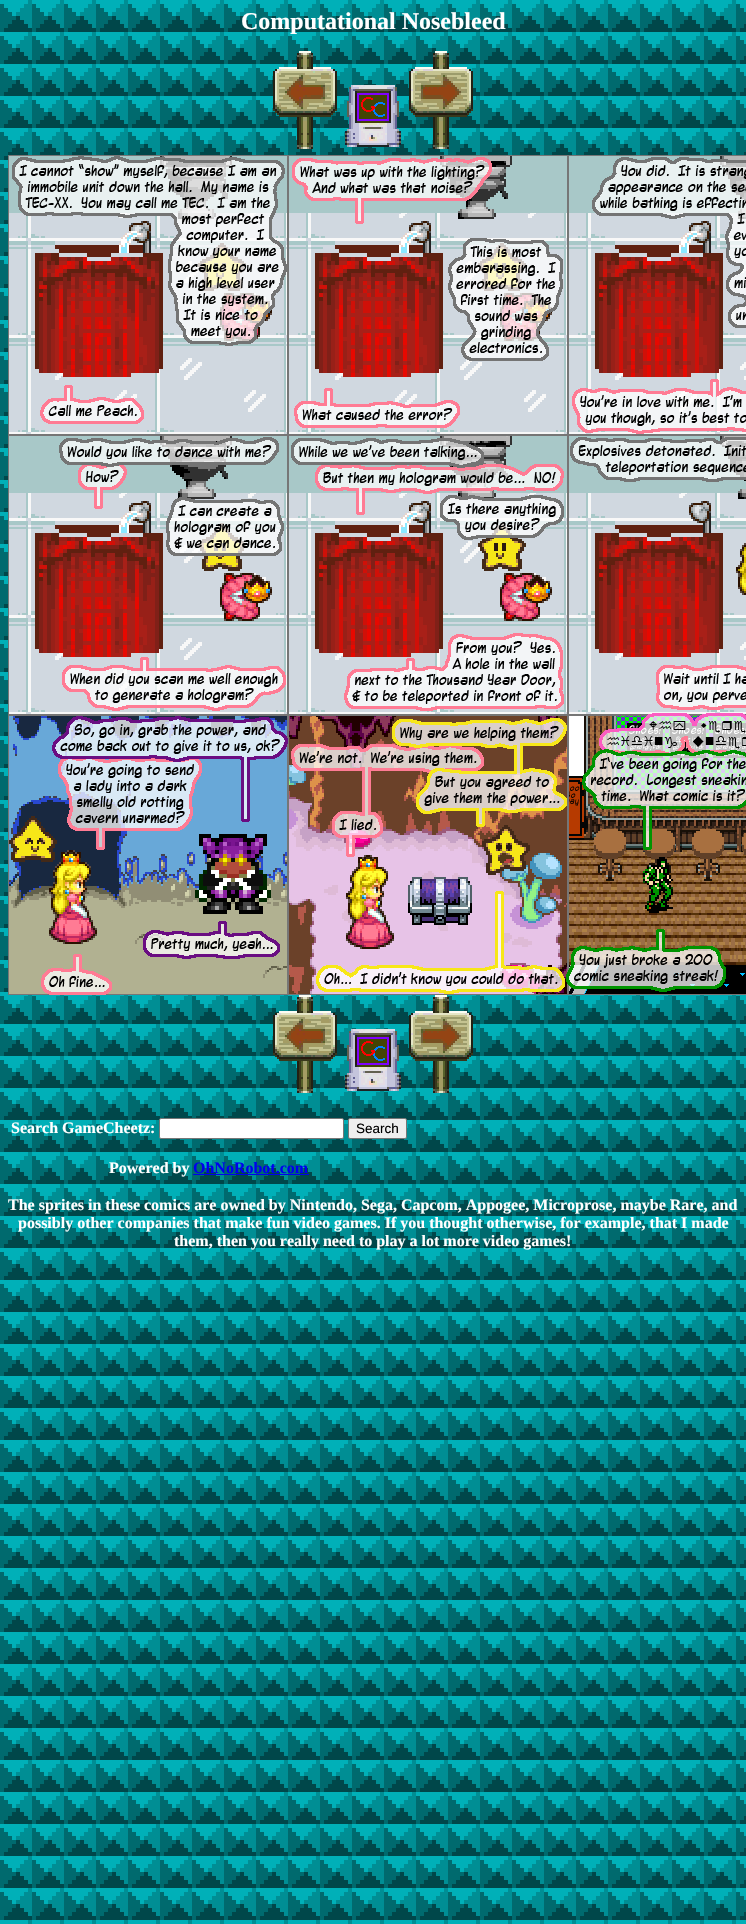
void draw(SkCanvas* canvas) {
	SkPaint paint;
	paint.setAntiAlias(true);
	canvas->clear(0xffffffff);
	canvas->drawImageRect(SkImages::DeferredFromEncodedData(SkData::MakeFromFileName("img1.png")), SkRect::MakeXYWH(0, 0, 746, 1924), SkSamplingOptions());
	SkFont f1(fontMgr->matchFamilyStyle("Liberation Serif", SkFontStyle::Bold()), 24);
	f1.setSubpixel(true);
	paint.setColor(0xffffffff);
	canvas->drawString("Computational Nosebleed", 241, 29, f1, paint);
	canvas->drawImageRect(SkImages::DeferredFromEncodedData(SkData::MakeFromFileName("img2.png")), SkRect::MakeXYWH(273, 51, 64, 98), SkSamplingOptions());
	canvas->drawImageRect(SkImages::DeferredFromEncodedData(SkData::MakeFromFileName("img3.png")), SkRect::MakeXYWH(345, 85, 56, 62), SkSamplingOptions());
	canvas->drawImageRect(SkImages::DeferredFromEncodedData(SkData::MakeFromFileName("img4.png")), SkRect::MakeXYWH(409, 51, 64, 98), SkSamplingOptions());
	canvas->drawImageRect(SkImages::DeferredFromEncodedData(SkData::MakeFromFileName("img5.png")), SkRect::MakeXYWH(8, 155, 738, 840), SkSamplingOptions());
	canvas->drawImageRect(SkImages::DeferredFromEncodedData(SkData::MakeFromFileName("img6.png")), SkRect::MakeXYWH(273, 995, 64, 98), SkSamplingOptions());
	canvas->drawImageRect(SkImages::DeferredFromEncodedData(SkData::MakeFromFileName("img7.png")), SkRect::MakeXYWH(345, 1029, 56, 62), SkSamplingOptions());
	canvas->drawImageRect(SkImages::DeferredFromEncodedData(SkData::MakeFromFileName("img8.png")), SkRect::MakeXYWH(409, 995, 64, 98), SkSamplingOptions());
	SkFont f2(fontMgr->matchFamilyStyle("Liberation Serif", SkFontStyle::Bold()), 16);
	f2.setSubpixel(true);
	canvas->drawString("Search GameCheetz:", 11, 1133, f2, paint);
	canvas->drawRoundRect(SkRect::MakeXYWH(159.5, 1118.5, 184, 20), 1.5, 1.5, paint);
	paint.setStroke(true);
	paint.setStrokeWidth(1);
	paint.setColor(0xff767676);
	canvas->drawRoundRect(SkRect::MakeXYWH(159.5, 1118.5, 184, 20), 1.5, 1.5, paint);
	paint.setStroke(false);
	paint.setColor(0xffefefef);
	canvas->drawRoundRect(SkRect::MakeXYWH(348.5, 1118.5, 58, 20), 1.5, 1.5, paint);
	paint.setStroke(true);
	paint.setColor(0xff767676);
	canvas->drawRoundRect(SkRect::MakeXYWH(348.5, 1118.5, 58, 20), 1.5, 1.5, paint);
	SkFont f3(fontMgr->matchFamilyStyle("Liberation Sans", SkFontStyle::Normal()), 13.5);
	f3.setSubpixel(true);
	paint.setStroke(false);
	paint.setColor(0xff000000);
	canvas->drawString("Search", 356, 1133, f3, paint);
	paint.setColor(0xffffffff);
	canvas->drawString("Powered by", 109, 1173, f2, paint);
	paint.setColor(0xff0000ee);
	canvas->drawRect(SkRect::MakeXYWH(193, 1174, 116, 1), paint);
	canvas->drawString("OhNoRobot.com", 193, 1173, f2, paint);
	paint.setColor(0xffffffff);
	canvas->drawString("The sprites in these comics are owned by Nintendo, Sega, Capcom, Appogee, Microprose, maybe Rare, and", 8, 1210, f2, paint);
	canvas->drawString("possibly other companies that make fun video games. If you thought otherwise, for example, that I made", 18, 1228, f2, paint);
	canvas->drawString("them, then you really need to play a lot more video games!", 174, 1246, f2, paint);
}
